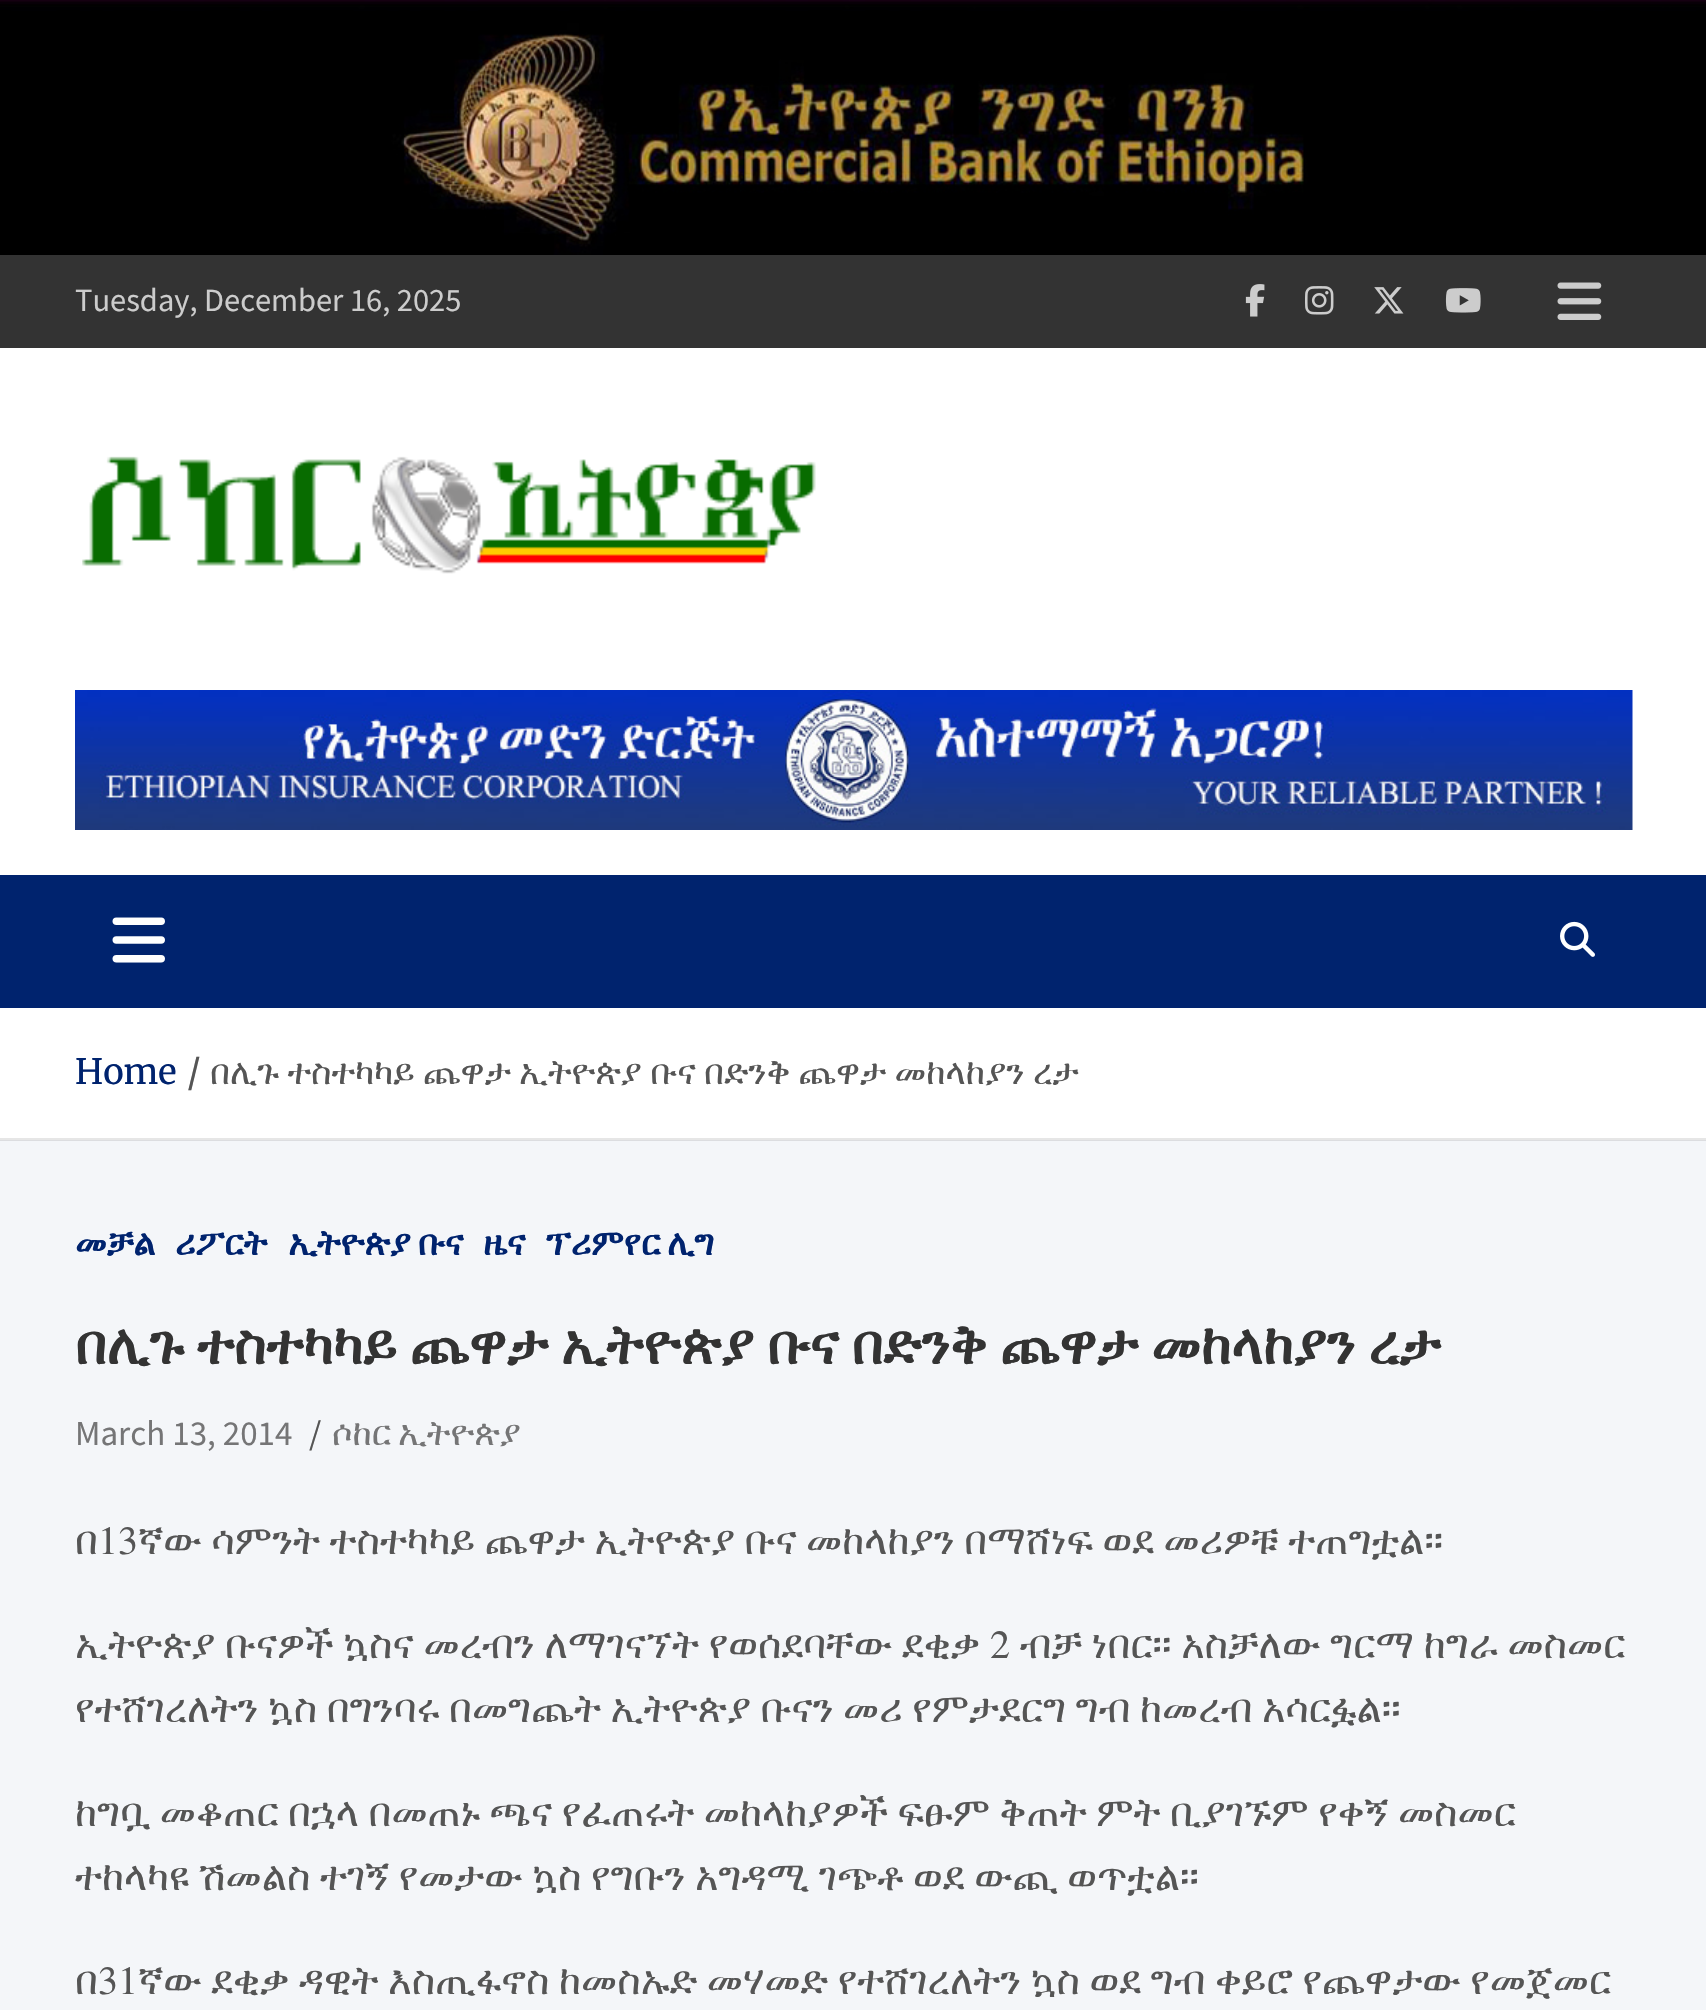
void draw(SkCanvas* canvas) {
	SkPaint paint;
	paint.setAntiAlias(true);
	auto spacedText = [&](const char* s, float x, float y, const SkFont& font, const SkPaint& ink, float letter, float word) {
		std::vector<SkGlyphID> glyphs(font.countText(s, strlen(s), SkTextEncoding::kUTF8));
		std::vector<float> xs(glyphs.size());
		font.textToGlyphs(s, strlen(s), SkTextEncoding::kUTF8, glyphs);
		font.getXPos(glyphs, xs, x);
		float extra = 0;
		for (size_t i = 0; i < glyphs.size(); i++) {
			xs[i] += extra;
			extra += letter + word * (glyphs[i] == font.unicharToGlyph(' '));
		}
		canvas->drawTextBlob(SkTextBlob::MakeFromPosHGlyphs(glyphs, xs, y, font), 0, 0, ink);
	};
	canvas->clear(0xfff4f6f9);
	paint.setColor(0xffdcdde0);
	canvas->drawRect(SkRect::MakeXYWH(0, 1140, 1706, 1), paint);
	canvas->drawImageRect(SkImages::DeferredFromEncodedData(SkData::MakeFromFileName("img1.png")), SkRect::MakeXYWH(0, 0, 1706, 255), SkSamplingOptions());
	paint.setColor(0xff333333);
	canvas->drawRect(SkRect::MakeXYWH(0, 255, 1706, 93), paint);
	SkFont f1(fontMgr->matchFamilyStyle("Source Sans Pro", SkFontStyle::Normal()), 32.5);
	f1.setSubpixel(true);
	paint.setColor(0xffcccccc);
	canvas->drawString("Tuesday, December 16, 2025", 75, 311, f1, paint);
	canvas->drawImageRect(SkImages::DeferredFromEncodedData(SkData::MakeFromFileName("img2.png")), SkRect::MakeXYWH(1245, 284, 20, 33), SkSamplingOptions());
	canvas->drawImageRect(SkImages::DeferredFromEncodedData(SkData::MakeFromFileName("img3.png")), SkRect::MakeXYWH(1305, 286, 29, 29), SkSamplingOptions());
	canvas->drawImageRect(SkImages::DeferredFromEncodedData(SkData::MakeFromFileName("img4.png")), SkRect::MakeXYWH(1374, 287, 30, 27), SkSamplingOptions());
	canvas->drawImageRect(SkImages::DeferredFromEncodedData(SkData::MakeFromFileName("img5.png")), SkRect::MakeXYWH(1445, 288, 36, 25), SkSamplingOptions());
	canvas->drawImageRect(SkImages::DeferredFromEncodedData(SkData::MakeFromFileName("img6.png")), SkRect::MakeXYWH(1557, 282, 45, 38), SkSamplingOptions());
	paint.setColor(0xffffffff);
	canvas->drawRect(SkRect::MakeXYWH(0, 348, 1706, 527), paint);
	canvas->drawImageRect(SkImages::DeferredFromEncodedData(SkData::MakeFromFileName("img7.png")), SkRect::MakeXYWH(82, 456, 734, 118), SkSamplingOptions());
	canvas->drawImageRect(SkImages::DeferredFromEncodedData(SkData::MakeFromFileName("img8.png")), SkRect::MakeXYWH(75, 690, 1558, 140), SkSamplingOptions());
	paint.setColor(0xff00236e);
	canvas->drawRect(SkRect::MakeXYWH(0, 875, 1706, 133), paint);
	canvas->drawImageRect(SkImages::DeferredFromEncodedData(SkData::MakeFromFileName("img9.png")), SkRect::MakeXYWH(112, 917, 53, 46), SkSamplingOptions());
	canvas->drawImageRect(SkImages::DeferredFromEncodedData(SkData::MakeFromFileName("img10.png")), SkRect::MakeXYWH(1560, 921, 35, 36), SkSamplingOptions());
	paint.setColor(0xffffffff);
	canvas->drawRect(SkRect::MakeXYWH(0, 1008, 1706, 130), paint);
	paint.setColor(0xffe6e6e6);
	canvas->drawRect(SkRect::MakeXYWH(0, 1138, 1706, 2), paint);
	SkFont f2(fontMgr->matchFamilyStyle("Merriweather", SkFontStyle::Normal()), 35);
	f2.setSubpixel(true);
	paint.setColor(0xff00236e);
	canvas->drawString("Home", 75, 1084, f2, paint);
	paint.setColor(0xff555555);
	canvas->drawString("/", 187, 1084, f2, paint);
	SkFont f3(fontMgr->matchFamilyStyle("FreeSerif", SkFontStyle::Normal()), 35);
	f3.setSubpixel(true);
	spacedText("በሊጉ ተስተካካይ ጨዋታ ኢትዮጵያ ቡና በድንቅ ጨዋታ መከላከያን ረታ", 210, 1084, f3, paint, 0, -0.5);
	SkFont f4(fontMgr->matchFamilyStyle("FreeSerif", SkFontStyle::Bold()), 35);
	f4.setSubpixel(true);
	paint.setColor(0xff00236e);
	canvas->drawString("መቻል", 75, 1255, f4, paint);
	canvas->drawString("ሪፖርት", 175, 1255, f4, paint);
	spacedText("ኢትዮጵያ ቡና", 288, 1255, f4, paint, 0, -2);
	canvas->drawString("ዜና", 483, 1255, f4, paint);
	spacedText("ፕሪምየር ሊግ", 546, 1255, f4, paint, 0, -2);
	SkFont f5(fontMgr->matchFamilyStyle("FreeSerif", SkFontStyle::Bold()), 55);
	f5.setSubpixel(true);
	paint.setColor(0xff333333);
	spacedText("በሊጉ ተስተካካይ ጨዋታ ኢትዮጵያ ቡና በድንቅ ጨዋታ መከላከያን ረታ", 75, 1364, f5, paint, 0, -0.75);
	SkFont f6(fontMgr->matchFamilyStyle("Source Sans Pro", SkFontStyle::Normal()), 35);
	f6.setSubpixel(true);
	paint.setColor(0xff757576);
	canvas->drawString("March 13, 2014", 75, 1445, f6, paint);
	paint.setColor(0xff555555);
	canvas->drawString("/", 309, 1445, f6, paint);
	paint.setColor(0xff757576);
	spacedText("ሶከር ኢትዮጵያ", 332, 1445, f3, paint, 0, -2);
	SkFont f7(fontMgr->matchFamilyStyle("FreeSerif", SkFontStyle::Normal()), 40);
	f7.setSubpixel(true);
	paint.setColor(0xff555555);
	spacedText("በ13ኛው ሳምንት ተስተካካይ ጨዋታ ኢትዮጵያ ቡና መከላከያን በማሸነፍ ወደ መሪዎቹ ተጠግቷል፡፡", 75, 1554, f7, paint, 0, -0.5);
	canvas->drawString("ኢትዮጵያ", 75, 1658, f7, paint);
	spacedText("ቡናዎች ኳስና መረብን ለማገናኘት የወሰደባቸው ደቂቃ 2 ብቻ ነበር፡፡ አስቻለው ግርማ ከግራ መስመር", 225, 1658, f7, paint, 0, -0.25);
	canvas->drawString("የተሸገረለትን", 75, 1722, f7, paint);
	spacedText("ኳስ በግንባሩ በመግጨት ኢትዮጵያ ቡናን መሪ የምታደርግ ግብ ከመረብ አሳርፏል፡፡", 268, 1722, f7, paint, 0, -0.5);
	spacedText("ከግቧ መቆጠር በኋላ በመጠኑ ጫና የፈጠሩት መከላከያዎች ፍፁም ቅጠት ምት ቢያገኙም የቀኝ መስመር", 75, 1826, f7, paint, 0, -0.5);
	spacedText("ተከላካዩ ሽመልስ ተገኝ የመታው ኳስ የግቡን አግዳሚ ገጭቶ ወደ ውጪ ወጥቷል፡፡", 75, 1890, f7, paint, 0, -0.5);
	spacedText("በ31ኛው ደቂቃ ዳዊት እስጢፋኖስ ከመስኡድ መሃመድ የተሸገረለትን ኳስ ወደ ግብ ቀይሮ የጨዋታው የመጀመር", 75, 1994, f7, paint, 0, -0.5);
}
